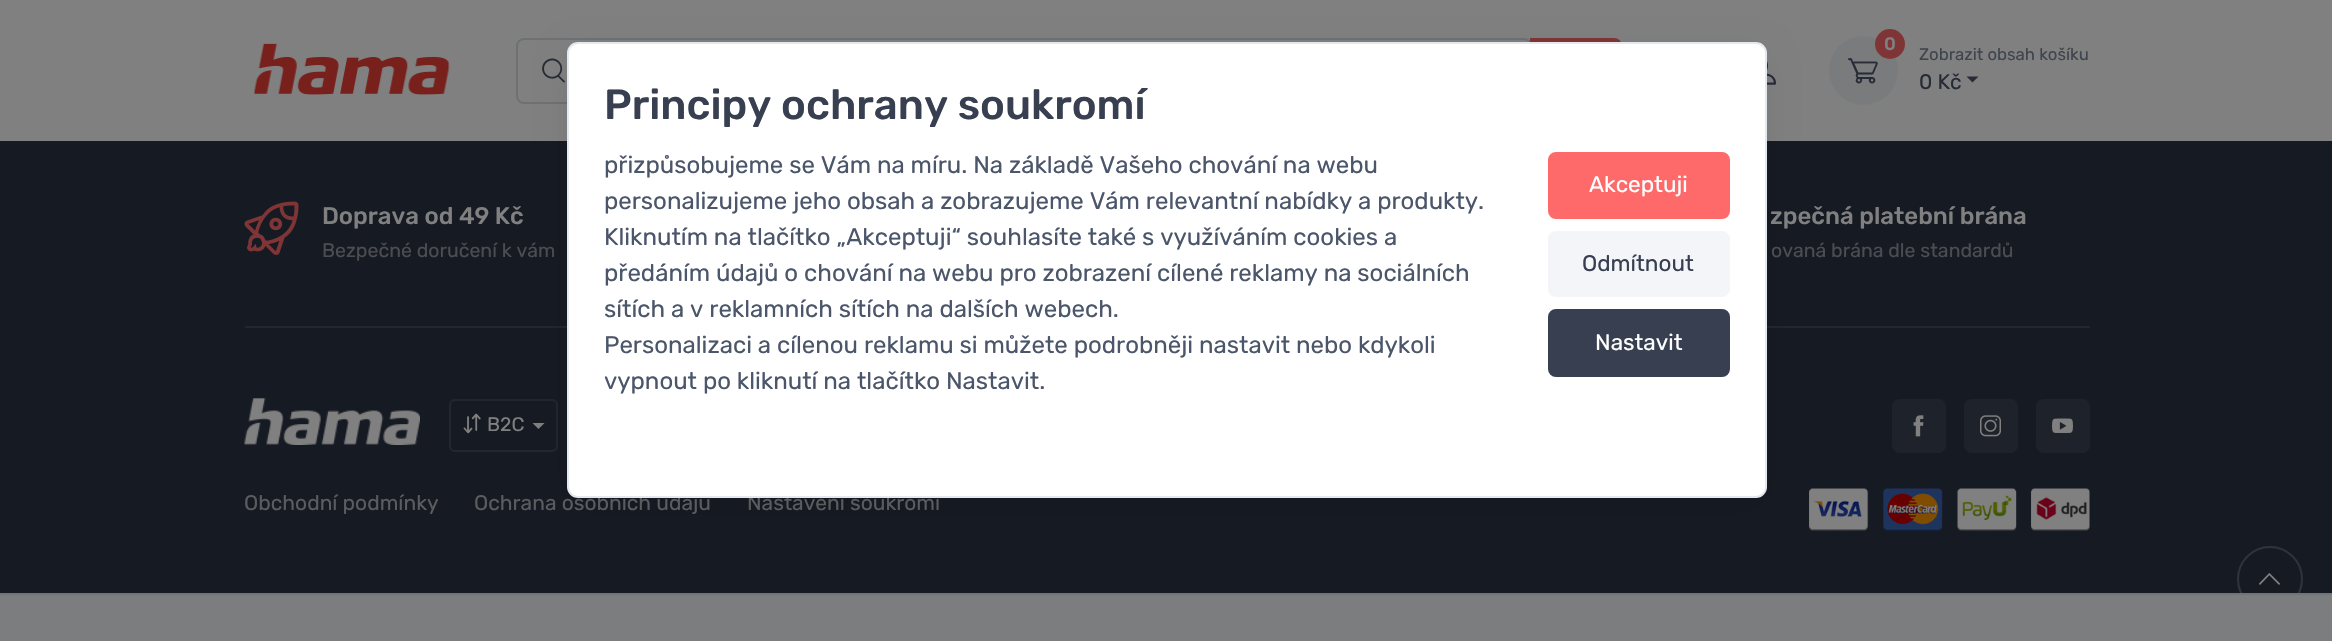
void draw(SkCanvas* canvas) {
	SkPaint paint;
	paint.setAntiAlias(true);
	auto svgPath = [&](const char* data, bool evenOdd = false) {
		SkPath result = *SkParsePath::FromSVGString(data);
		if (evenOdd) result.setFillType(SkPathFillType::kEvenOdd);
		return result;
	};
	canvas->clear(0xff161a23);
	paint.setColor(0xff808080);
	canvas->drawRect(SkRect::MakeXYWH(0, 0, 2332, 141), paint);
	canvas->drawImageRect(SkImages::DeferredFromEncodedData(SkData::MakeFromFileName("img1.png")), SkRect::MakeXYWH(253, 43, 197, 52), SkSamplingOptions());
	paint.setStroke(true);
	paint.setStrokeWidth(2);
	paint.setColor(0xff6d7174);
	canvas->drawRoundRect(SkRect::MakeXYWH(517, 39, 1014, 64), 7, 7, paint);
	paint.setStroke(false);
	paint.setColor(0xff7f3535);
	canvas->drawPath(svgPath("M1531 39H1614C1618 39 1621 42 1621 46V96C1621 100 1618 103 1614 103H1531Z"), paint);
	paint.setStroke(true);
	canvas->drawPath(svgPath("M1531 39H1614C1618 39 1621 42 1621 46V96C1621 100 1618 103 1614 103H1531Z"), paint);
	canvas->drawImageRect(SkImages::DeferredFromEncodedData(SkData::MakeFromFileName("img2.png")), SkRect::MakeXYWH(542, 58, 23, 25), SkSamplingOptions());
	canvas->drawImageRect(SkImages::DeferredFromEncodedData(SkData::MakeFromFileName("img3.png")), SkRect::MakeXYWH(1767, 61, 9, 24), SkSamplingOptions());
	paint.setStroke(false);
	paint.setColor(0xff7a7b7d);
	canvas->drawCircle(1863.5, 70.5, 34.5, paint);
	canvas->drawImageRect(SkImages::DeferredFromEncodedData(SkData::MakeFromFileName("img4.png")), SkRect::MakeXYWH(1848, 58, 30, 26), SkSamplingOptions());
	paint.setColor(0xff7f3535);
	canvas->drawCircle(1890, 44, 15, paint);
	SkFont f1(fontMgr->matchFamilyStyle("Rubik", SkFontStyle(500, SkFontStyle::kNormal_Width, SkFontStyle::kUpright_Slant)), 18);
	f1.setSubpixel(true);
	paint.setColor(0xff808080);
	canvas->drawString("0", 1884, 50, f1, paint);
	SkFont f2(fontMgr->matchFamilyStyle("Rubik", SkFontStyle::Normal()), 16.75);
	f2.setSubpixel(true);
	paint.setColor(0xff3f444e);
	canvas->drawString("Zobrazit obsah košíku", 1919, 60, f2, paint);
	SkFont f3(fontMgr->matchFamilyStyle("Rubik", SkFontStyle::Normal()), 21);
	f3.setSubpixel(true);
	paint.setColor(0xff262b36);
	canvas->drawString("0 Kč", 1919, 89, f3, paint);
	canvas->drawPath(svgPath("M1966.5 76.5H1978.5L1972.5 82.5Z"), paint);
	paint.setStroke(true);
	paint.setColor(0xff30343a);
	canvas->drawCircle(2270, 579, 32, paint);
	paint.setStroke(false);
	paint.setColor(0xff7b7d7e);
	canvas->drawRect(SkRect::MakeXYWH(0, 595, 2332, 46), paint);
	paint.setColor(0xff727578);
	canvas->drawRect(SkRect::MakeXYWH(0, 593, 2332, 2), paint);
	paint.setColor(0xff22262e);
	canvas->drawRect(SkRect::MakeXYWH(245, 326, 1845, 2), paint);
	paint.setStroke(true);
	canvas->drawRoundRect(SkRect::MakeXYWH(450, 400, 107, 51), 5, 5, paint);
	paint.setStroke(false);
	paint.setColor(0xff808080);
	canvas->drawPath(svgPath("M532.5 423H544.5L538.5 429Z"), paint);
	canvas->drawImageRect(SkImages::DeferredFromEncodedData(SkData::MakeFromFileName("img11.png")), SkRect::MakeXYWH(1809, 488, 281, 43), SkSamplingOptions());
	paint.setColor(0x1a000000);
	paint.setMaskFilter(SkMaskFilter::MakeBlur(kNormal_SkBlurStyle, 18.5));
	canvas->drawRoundRect(SkRect::MakeXYWH(576, 59, 1182, 438), 1.5, 1.5, paint);
	paint.setMaskFilter(nullptr);
	paint.setColor(0xff5b5c5f);
	canvas->drawString("Ochrana osobních údajů", 474, 510, f3, paint);
	canvas->drawString("Nastavení soukromí", 747, 510, f3, paint);
	paint.setColor(0xffffffff);
	canvas->drawRoundRect(SkRect::MakeXYWH(568, 43, 1198, 454), 10, 10, paint);
	paint.setStroke(true);
	paint.setColor(0xffe3e9ef);
	canvas->drawRoundRect(SkRect::MakeXYWH(568, 43, 1198, 454), 10, 10, paint);
	SkFont f4(fontMgr->matchFamilyStyle("Rubik", SkFontStyle(500, SkFontStyle::kNormal_Width, SkFontStyle::kUpright_Slant)), 42);
	f4.setSubpixel(true);
	paint.setStroke(false);
	paint.setColor(0xff373f50);
	canvas->drawString("Principy ochrany soukromí", 604, 119, f4, paint);
	SkFont f5(fontMgr->matchFamilyStyle("Rubik", SkFontStyle::Normal()), 24);
	f5.setSubpixel(true);
	paint.setColor(0xff4b566b);
	canvas->drawString("přizpůsobujeme se Vám na míru. Na základě Vašeho chování na webu", 604, 173, f5, paint);
	canvas->drawString("personalizujeme jeho obsah a zobrazujeme Vám relevantní nabídky a produkty.", 604, 209, f5, paint);
	canvas->drawString("Kliknutím na tlačítko „Akceptuji“ souhlasíte také s využíváním cookies a", 604, 245, f5, paint);
	canvas->drawString("předáním údajů o chování na webu pro zobrazení cílené reklamy na sociálních", 604, 281, f5, paint);
	canvas->drawString("sítích a v reklamních sítích na dalších webech.", 604, 317, f5, paint);
	canvas->drawString("Personalizaci a cílenou reklamu si můžete podrobněji nastavit nebo kdykoli", 604, 353, f5, paint);
	canvas->drawString("vypnout po kliknutí na tlačítko Nastavit.", 604, 389, f5, paint);
	paint.setColor(0xfffe696a);
	canvas->drawRoundRect(SkRect::MakeXYWH(1549, 153, 180, 65), 7, 7, paint);
	paint.setStroke(true);
	canvas->drawRoundRect(SkRect::MakeXYWH(1549, 153, 180, 65), 7, 7, paint);
	SkFont f6(fontMgr->matchFamilyStyle("Rubik", SkFontStyle::Normal()), 22.5);
	f6.setSubpixel(true);
	paint.setStroke(false);
	paint.setColor(0xffffffff);
	canvas->drawString("Akceptuji", 1589, 192, f6, paint);
	paint.setColor(0xfff3f5f9);
	canvas->drawRoundRect(SkRect::MakeXYWH(1549, 232, 180, 64), 7, 7, paint);
	paint.setStroke(true);
	canvas->drawRoundRect(SkRect::MakeXYWH(1549, 232, 180, 64), 7, 7, paint);
	paint.setStroke(false);
	paint.setColor(0xff373f50);
	canvas->drawString("Odmítnout", 1582, 271, f6, paint);
	canvas->drawRoundRect(SkRect::MakeXYWH(1549, 310, 180, 66), 7, 7, paint);
	paint.setStroke(true);
	canvas->drawRoundRect(SkRect::MakeXYWH(1549, 310, 180, 66), 7, 7, paint);
	paint.setStroke(false);
	paint.setColor(0xffffffff);
	canvas->drawString("Nastavit", 1595, 350, f6, paint);
	canvas->drawImageRect(SkImages::DeferredFromEncodedData(SkData::MakeFromFileName("img5.png")), SkRect::MakeXYWH(244, 201, 55, 54), SkSamplingOptions());
	SkFont f7(fontMgr->matchFamilyStyle("Rubik", SkFontStyle(500, SkFontStyle::kNormal_Width, SkFontStyle::kUpright_Slant)), 24);
	f7.setSubpixel(true);
	paint.setColor(0xff808080);
	canvas->drawString("Doprava od 49 Kč", 322, 224, f7, paint);
	SkFont f8(fontMgr->matchFamilyStyle("Rubik", SkFontStyle::Normal()), 19.5);
	f8.setSubpixel(true);
	paint.setColor(0xff4b4d51);
	canvas->drawString("Bezpečné doručení k vám", 322, 257, f8, paint);
	paint.setColor(0xff808080);
	canvas->drawString("zpečná platební brána", 1770, 224, f7, paint);
	paint.setColor(0xff4b4d51);
	canvas->drawString("ovaná brána dle standardů", 1771, 257, f8, paint);
	canvas->drawImageRect(SkImages::DeferredFromEncodedData(SkData::MakeFromFileName("img6.png")), SkRect::MakeXYWH(244, 398, 176, 47), SkSamplingOptions());
	canvas->drawImageRect(SkImages::DeferredFromEncodedData(SkData::MakeFromFileName("img7.png")), SkRect::MakeXYWH(463, 413, 18, 21), SkSamplingOptions());
	paint.setColor(0xff808080);
	canvas->drawString("B2C", 487, 431, f8, paint);
	paint.setColor(0xff5b5c5f);
	canvas->drawString("Obchodní podmínky", 244, 510, f3, paint);
	paint.setColor(0xff1e222a);
	canvas->drawRoundRect(SkRect::MakeXYWH(1892, 399, 54, 54), 8, 8, paint);
	canvas->drawImageRect(SkImages::DeferredFromEncodedData(SkData::MakeFromFileName("img8.png")), SkRect::MakeXYWH(1913, 415, 11, 22), SkSamplingOptions());
	canvas->drawRoundRect(SkRect::MakeXYWH(1964, 399, 54, 54), 8, 8, paint);
	canvas->drawImageRect(SkImages::DeferredFromEncodedData(SkData::MakeFromFileName("img9.png")), SkRect::MakeXYWH(1980, 415, 21, 22), SkSamplingOptions());
	canvas->drawRoundRect(SkRect::MakeXYWH(2036, 399, 54, 54), 8, 8, paint);
	canvas->drawImageRect(SkImages::DeferredFromEncodedData(SkData::MakeFromFileName("img10.png")), SkRect::MakeXYWH(2052, 418, 21, 15), SkSamplingOptions());
	canvas->drawImageRect(SkImages::DeferredFromEncodedData(SkData::MakeFromFileName("img12.png")), SkRect::MakeXYWH(2259, 573, 21, 12), SkSamplingOptions());
}
